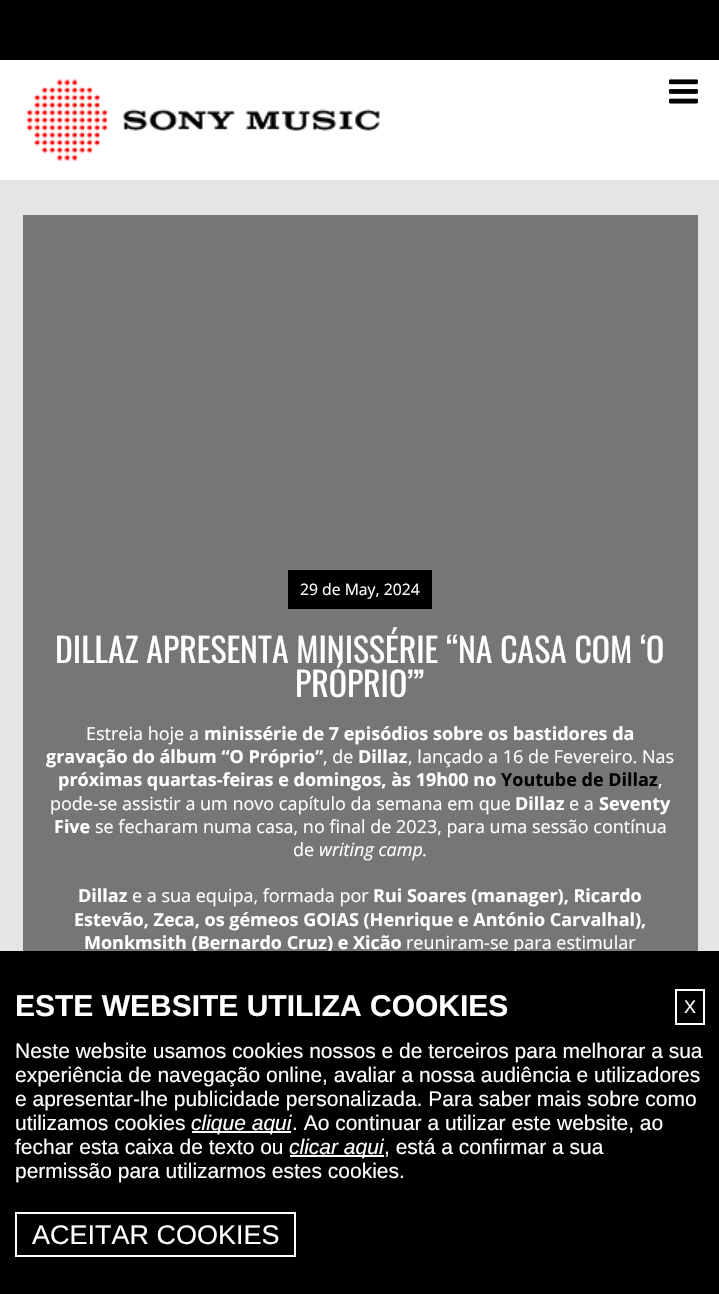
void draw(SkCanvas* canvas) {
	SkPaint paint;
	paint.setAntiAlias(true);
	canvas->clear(0xffe6e4e4);
	paint.setColor(0xff000000);
	canvas->drawRect(SkRect::MakeXYWH(0, 0, 719, 60), paint);
	paint.setColor(0xffffffff);
	canvas->drawRect(SkRect::MakeXYWH(0, 60, 719, 120), paint);
	canvas->drawImageRect(SkImages::DeferredFromEncodedData(SkData::MakeFromFileName("img1.png")), SkRect::MakeXYWH(26, 79, 354, 82), SkSamplingOptions());
	canvas->drawImageRect(SkImages::DeferredFromEncodedData(SkData::MakeFromFileName("img2.png")), SkRect::MakeXYWH(669, 79, 29, 25), SkSamplingOptions());
	paint.setColor(0xff767676);
	canvas->drawRect(SkRect::MakeXYWH(23, 215, 675, 736), paint);
	paint.setColor(0xff000000);
	canvas->drawRect(SkRect::MakeXYWH(288, 570, 144, 39), paint);
	SkFont f1(fontMgr->matchFamilyStyle("Open Sans", SkFontStyle::Normal()), 15.75);
	f1.setSubpixel(true);
	paint.setColor(0xffffffff);
	canvas->drawString("29 de May, 2024", 300, 595, f1, paint);
	SkFont f2(fontMgr->matchFamilyStyle("Oswald", SkFontStyle::Normal()), 33.75);
	f2.setSubpixel(true);
	canvas->drawString("DILLAZ APRESENTA MINISSÉRIE “NA CASA COM ‘O", 55, 663, f2, paint);
	canvas->drawString("PRÓPRIO’”", 295, 697, f2, paint);
	SkFont f3(fontMgr->matchFamilyStyle("Open Sans", SkFontStyle::Normal()), 18);
	f3.setSubpixel(true);
	canvas->drawString("Estreia hoje a", 86, 740, f3, paint);
	SkFont f4(fontMgr->matchFamilyStyle("Open Sans", SkFontStyle::Bold()), 18);
	f4.setSubpixel(true);
	canvas->drawString("minissérie de 7 episódios sobre os bastidores da", 204, 740, f4, paint);
	canvas->drawString("gravação do álbum “O Próprio”", 46, 763, f4, paint);
	canvas->drawString(", de", 323, 763, f3, paint);
	canvas->drawString("Dillaz", 358, 763, f4, paint);
	canvas->drawString(", lançado a 16 de Fevereiro. Nas", 408, 763, f3, paint);
	canvas->drawString("próximas quartas-feiras e domingos, às 19h00 no", 58, 786, f4, paint);
	paint.setColor(0xff000000);
	canvas->drawString("Youtube de Dillaz", 501, 786, f4, paint);
	paint.setColor(0xffffffff);
	canvas->drawString(",", 658, 786, f3, paint);
	canvas->drawString("pode-se assistir a um novo capítulo da semana em que", 50, 810, f3, paint);
	canvas->drawString("Dillaz", 515, 810, f4, paint);
	canvas->drawString("e a", 569, 810, f3, paint);
	canvas->drawString("Seventy", 599, 810, f4, paint);
	canvas->drawString("Five", 54, 833, f4, paint);
	canvas->drawString("se fecharam numa casa, no final de 2023, para uma sessão contínua", 95, 833, f3, paint);
	canvas->drawString("de", 293, 856, f3, paint);
	SkFont f5(fontMgr->matchFamilyStyle("Open Sans", SkFontStyle::Italic()), 18);
	f5.setSubpixel(true);
	canvas->drawString("writing camp", 319, 856, f5, paint);
	canvas->drawString(".", 422, 856, f3, paint);
	canvas->drawString("Dillaz", 78, 902, f4, paint);
	canvas->drawString("e a sua equipa, formada por", 132, 902, f3, paint);
	canvas->drawString("Rui Soares (manager), Ricardo", 373, 902, f4, paint);
	canvas->drawString("Estevão, Zeca, os gémeos GOIAS (Henrique e António Carvalhal),", 74, 926, f4, paint);
	canvas->drawString("Monkmsith (Bernardo Cruz) e Xicão", 84, 949, f4, paint);
	canvas->drawString("reuniram-se para estimular", 406, 949, f3, paint);
	paint.setColor(0xff000000);
	canvas->drawRect(SkRect::MakeXYWH(0, 951, 719, 343), paint);
	SkFont f6(fontMgr->matchFamilyStyle("Liberation Sans", SkFontStyle::Bold()), 30);
	f6.setSubpixel(true);
	paint.setColor(0xffffffff);
	canvas->drawString("ESTE WEBSITE UTILIZA COOKIES", 15, 1016, f6, paint);
	paint.setStroke(true);
	paint.setStrokeWidth(2);
	canvas->drawRect(SkRect::MakeXYWH(676, 990, 28, 34), paint);
	SkFont f7(fontMgr->matchFamilyStyle("Liberation Sans", SkFontStyle::Normal()), 18);
	f7.setSubpixel(true);
	paint.setStroke(false);
	canvas->drawString("X", 684, 1013, f7, paint);
	SkFont f8(fontMgr->matchFamilyStyle("Liberation Sans", SkFontStyle::Normal()), 21);
	f8.setSubpixel(true);
	canvas->drawString("Neste website usamos cookies nossos e de terceiros para melhorar a sua", 15, 1058, f8, paint);
	canvas->drawString("experiência de navegação online, avaliar a nossa audiência e utilizadores", 15, 1082, f8, paint);
	canvas->drawString("e apresentar-lhe publicidade personalizada. Para saber mais sobre como", 15, 1106, f8, paint);
	canvas->drawString("utilizamos cookies", 15, 1130, f8, paint);
	canvas->drawRect(SkRect::MakeXYWH(192, 1131, 99, 2), paint);
	SkFont f9(fontMgr->matchFamilyStyle("Liberation Sans", SkFontStyle::Italic()), 21);
	f9.setSubpixel(true);
	canvas->drawString("clique aqui", 191, 1130, f9, paint);
	canvas->drawString(". Ao continuar a utilizar este website, ao", 292, 1130, f8, paint);
	canvas->drawString("fechar esta caixa de texto ou", 15, 1154, f8, paint);
	canvas->drawRect(SkRect::MakeXYWH(290, 1155, 94, 2), paint);
	canvas->drawString("clicar aqui", 289, 1154, f9, paint);
	canvas->drawString(", está a confirmar a sua", 384, 1154, f8, paint);
	canvas->drawString("permissão para utilizarmos estes cookies.", 15, 1178, f8, paint);
	paint.setStroke(true);
	canvas->drawRect(SkRect::MakeXYWH(16, 1213, 279, 43), paint);
	SkFont f10(fontMgr->matchFamilyStyle("Liberation Sans", SkFontStyle::Normal()), 27);
	f10.setSubpixel(true);
	paint.setStroke(false);
	canvas->drawString("ACEITAR COOKIES", 32, 1244, f10, paint);
}
